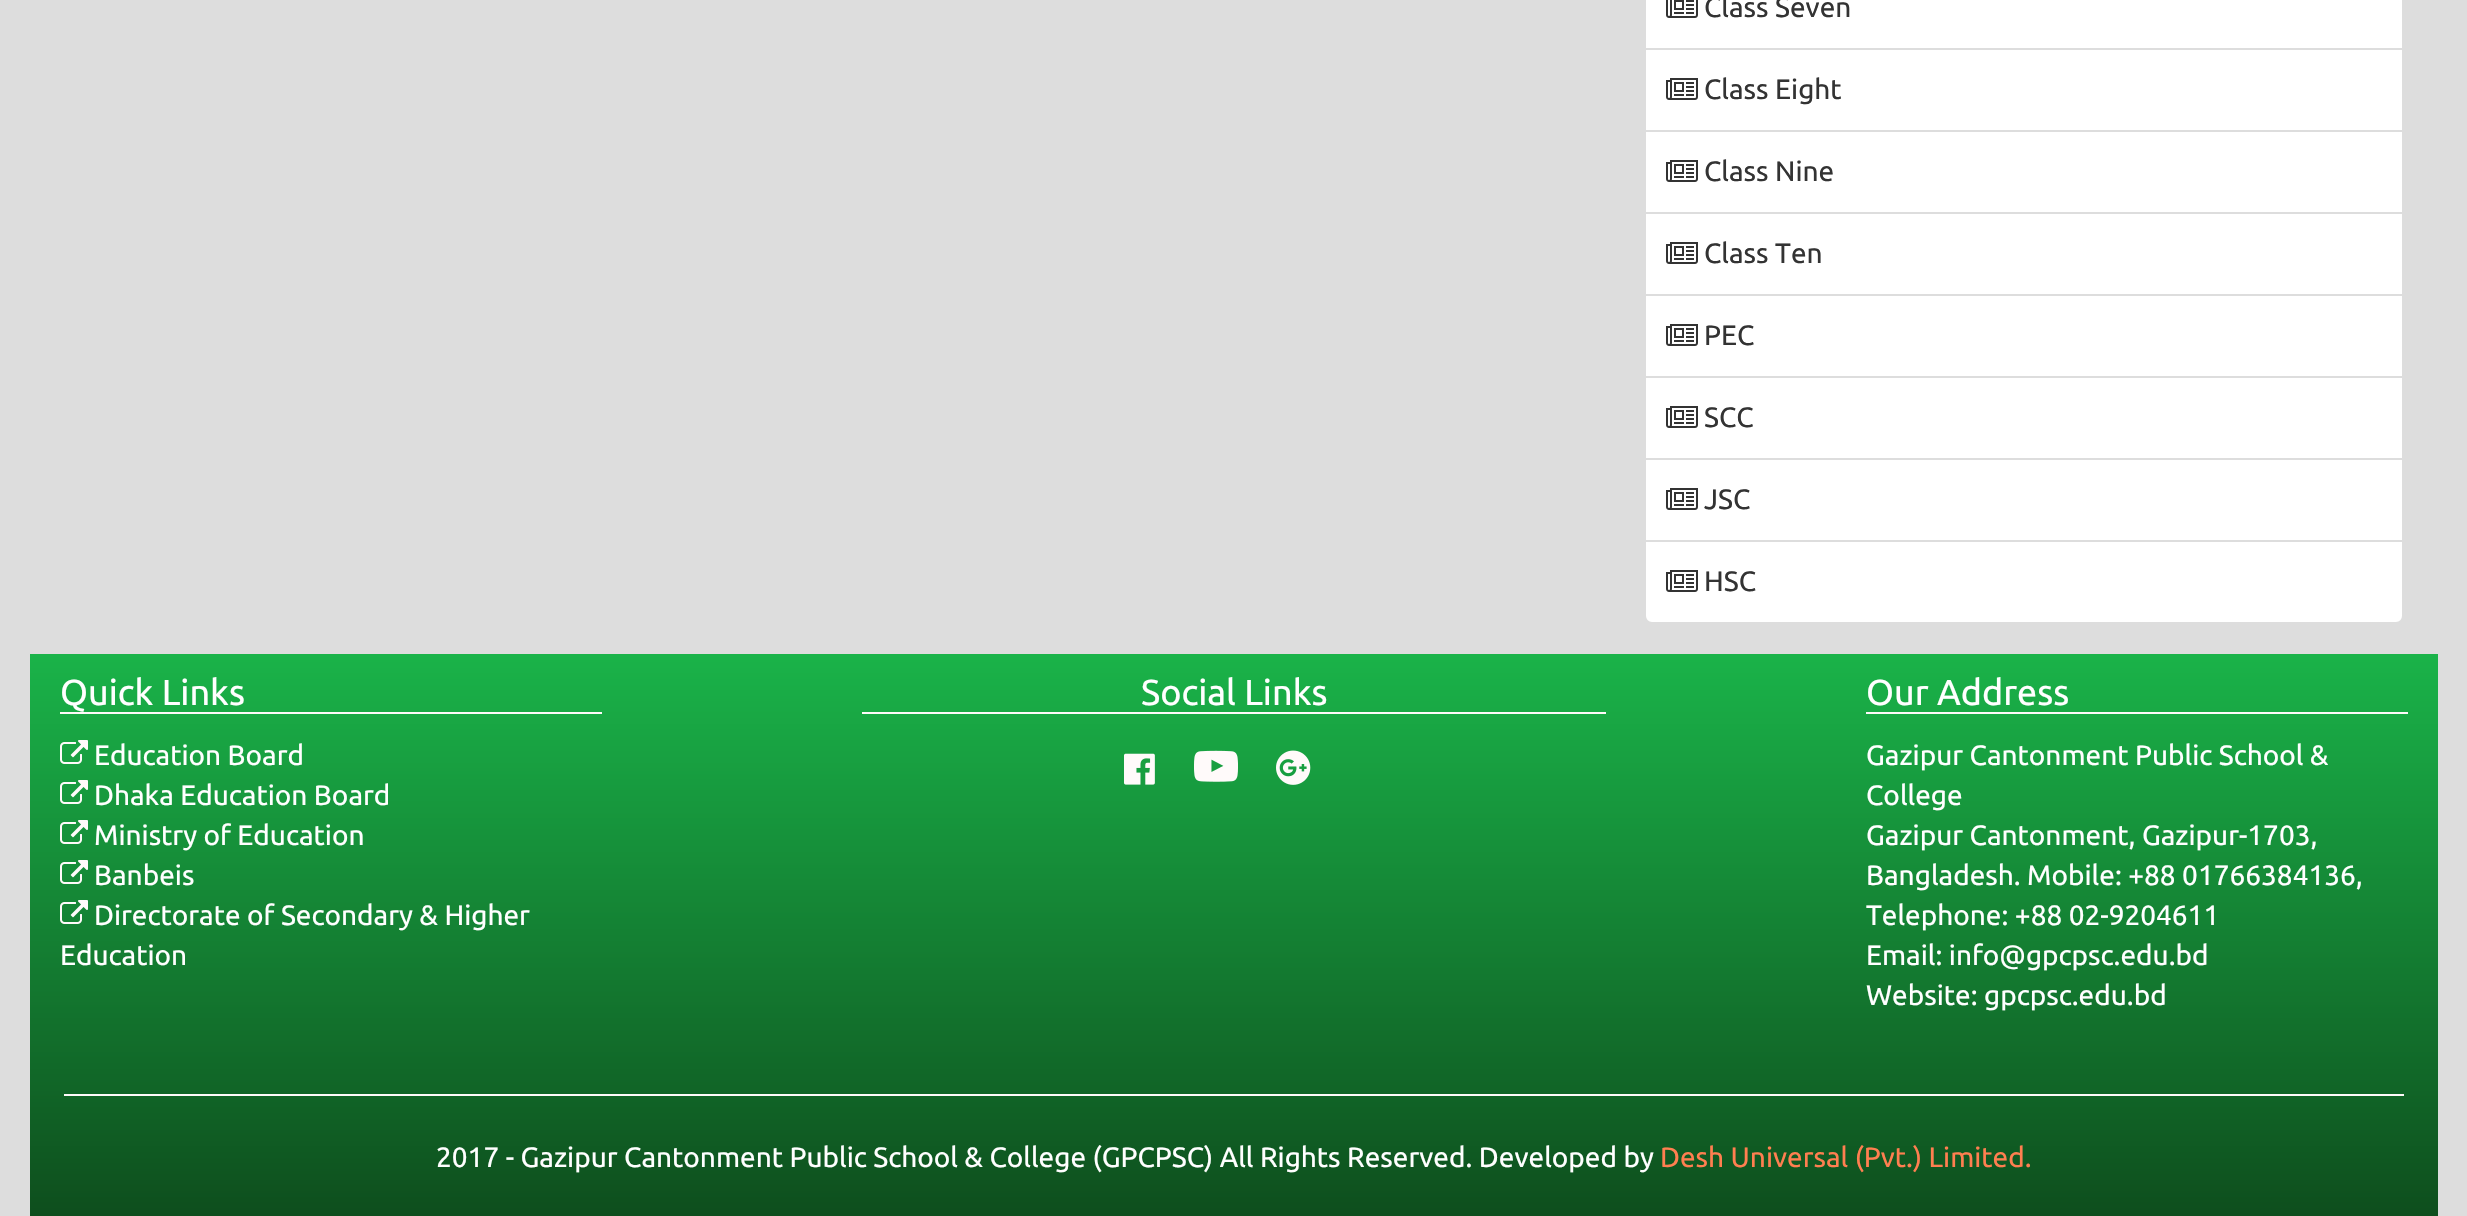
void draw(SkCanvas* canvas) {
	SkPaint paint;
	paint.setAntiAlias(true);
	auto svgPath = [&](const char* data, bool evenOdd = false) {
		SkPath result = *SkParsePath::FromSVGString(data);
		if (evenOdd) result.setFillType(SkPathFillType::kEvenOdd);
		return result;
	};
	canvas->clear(0xffdddddd);
	paint.setColor(0xffffffff);
	canvas->drawRect(SkRect::MakeXYWH(1646, 0, 756, 48), paint);
	canvas->drawImageRect(SkImages::DeferredFromEncodedData(SkData::MakeFromFileName("img1.png")), SkRect::MakeXYWH(1666, 0, 32, 18), SkSamplingOptions());
	SkFont f1(fontMgr->matchFamilyStyle("Ubuntu", SkFontStyle::Normal()), 28);
	f1.setSubpixel(true);
	paint.setColor(0xff333333);
	canvas->drawString("Class Seven", 1704, 17, f1, paint);
	paint.setColor(0xffffffff);
	canvas->drawRect(SkRect::MakeXYWH(1646, 50, 756, 80), paint);
	canvas->drawImageRect(SkImages::DeferredFromEncodedData(SkData::MakeFromFileName("img2.png")), SkRect::MakeXYWH(1666, 78, 32, 22), SkSamplingOptions());
	paint.setColor(0xff333333);
	canvas->drawString("Class Eight", 1704, 99, f1, paint);
	paint.setColor(0xffffffff);
	canvas->drawRect(SkRect::MakeXYWH(1646, 132, 756, 80), paint);
	canvas->drawImageRect(SkImages::DeferredFromEncodedData(SkData::MakeFromFileName("img2.png")), SkRect::MakeXYWH(1666, 160, 32, 22), SkSamplingOptions());
	paint.setColor(0xff333333);
	canvas->drawString("Class Nine", 1704, 181, f1, paint);
	paint.setColor(0xffffffff);
	canvas->drawRect(SkRect::MakeXYWH(1646, 214, 756, 80), paint);
	canvas->drawImageRect(SkImages::DeferredFromEncodedData(SkData::MakeFromFileName("img2.png")), SkRect::MakeXYWH(1666, 242, 32, 22), SkSamplingOptions());
	paint.setColor(0xff333333);
	canvas->drawString("Class Ten", 1704, 263, f1, paint);
	paint.setColor(0xffffffff);
	canvas->drawRect(SkRect::MakeXYWH(1646, 296, 756, 80), paint);
	canvas->drawImageRect(SkImages::DeferredFromEncodedData(SkData::MakeFromFileName("img2.png")), SkRect::MakeXYWH(1666, 324, 32, 22), SkSamplingOptions());
	paint.setColor(0xff333333);
	canvas->drawString("PEC", 1704, 345, f1, paint);
	paint.setColor(0xffffffff);
	canvas->drawRect(SkRect::MakeXYWH(1646, 378, 756, 80), paint);
	canvas->drawImageRect(SkImages::DeferredFromEncodedData(SkData::MakeFromFileName("img2.png")), SkRect::MakeXYWH(1666, 406, 32, 22), SkSamplingOptions());
	paint.setColor(0xff333333);
	canvas->drawString("SCC", 1704, 427, f1, paint);
	paint.setColor(0xffffffff);
	canvas->drawRect(SkRect::MakeXYWH(1646, 460, 756, 80), paint);
	canvas->drawImageRect(SkImages::DeferredFromEncodedData(SkData::MakeFromFileName("img2.png")), SkRect::MakeXYWH(1666, 488, 32, 22), SkSamplingOptions());
	paint.setColor(0xff333333);
	canvas->drawString("JSC", 1704, 509, f1, paint);
	paint.setColor(0xffffffff);
	canvas->drawPath(svgPath("M1645 541H2403V616C2403 620 2400 623 2396 623H1652C1648 623 1645 620 1645 616Z"), paint);
	paint.setStroke(true);
	paint.setStrokeWidth(2);
	paint.setColor(0xffdddddd);
	canvas->drawPath(svgPath("M1645 541H2403V616C2403 620 2400 623 2396 623H1652C1648 623 1645 620 1645 616Z"), paint);
	canvas->drawImageRect(SkImages::DeferredFromEncodedData(SkData::MakeFromFileName("img2.png")), SkRect::MakeXYWH(1666, 570, 32, 22), SkSamplingOptions());
	paint.setStroke(false);
	paint.setColor(0xff333333);
	canvas->drawString("HSC", 1704, 591, f1, paint);
	{
		const SkColor colors[] = {0xff1ab349, 0xff0e4e1d};
		const float stops[] = {0, 1};
		const SkPoint ends[] = {{1234, 654}, {1234, 1216}};
		paint.setShader(SkGradientShader::MakeLinear(ends, colors, stops, 2, SkTileMode::kClamp));
		paint.setAlpha(255);
	}
	canvas->drawRect(SkRect::MakeXYWH(30, 654, 2408, 562), paint);
	paint.setShader(nullptr);
	paint.setColor(0xfffffafa);
	canvas->drawRect(SkRect::MakeXYWH(60, 712, 542, 2), paint);
	SkFont f2(fontMgr->matchFamilyStyle("Ubuntu", SkFontStyle::Normal()), 36);
	f2.setSubpixel(true);
	paint.setColor(0xffffffff);
	canvas->drawString("Quick Links", 60, 705, f2, paint);
	canvas->drawImageRect(SkImages::DeferredFromEncodedData(SkData::MakeFromFileName("img3.png")), SkRect::MakeXYWH(60, 740, 28, 24), SkSamplingOptions());
	canvas->drawString("Education Board", 94, 765, f1, paint);
	canvas->drawImageRect(SkImages::DeferredFromEncodedData(SkData::MakeFromFileName("img4.png")), SkRect::MakeXYWH(60, 780, 28, 24), SkSamplingOptions());
	canvas->drawString("Dhaka Education Board", 94, 805, f1, paint);
	canvas->drawImageRect(SkImages::DeferredFromEncodedData(SkData::MakeFromFileName("img5.png")), SkRect::MakeXYWH(60, 820, 28, 24), SkSamplingOptions());
	canvas->drawString("Ministry of Education", 94, 845, f1, paint);
	canvas->drawImageRect(SkImages::DeferredFromEncodedData(SkData::MakeFromFileName("img6.png")), SkRect::MakeXYWH(60, 860, 28, 24), SkSamplingOptions());
	canvas->drawString("Banbeis", 94, 885, f1, paint);
	canvas->drawImageRect(SkImages::DeferredFromEncodedData(SkData::MakeFromFileName("img7.png")), SkRect::MakeXYWH(60, 900, 28, 24), SkSamplingOptions());
	canvas->drawString("Directorate of Secondary & Higher", 94, 925, f1, paint);
	canvas->drawString("Education", 60, 965, f1, paint);
	paint.setColor(0xfffffafa);
	canvas->drawRect(SkRect::MakeXYWH(862, 712, 744, 2), paint);
	paint.setColor(0xffffffff);
	canvas->drawString("Social Links", 1141, 705, f2, paint);
	canvas->drawImageRect(SkImages::DeferredFromEncodedData(SkData::MakeFromFileName("img8.png")), SkRect::MakeXYWH(1124, 753, 31, 32), SkSamplingOptions());
	canvas->drawImageRect(SkImages::DeferredFromEncodedData(SkData::MakeFromFileName("img9.png")), SkRect::MakeXYWH(1194, 750, 44, 32), SkSamplingOptions());
	canvas->drawImageRect(SkImages::DeferredFromEncodedData(SkData::MakeFromFileName("img10.png")), SkRect::MakeXYWH(1276, 750, 35, 35), SkSamplingOptions());
	paint.setColor(0xfffffafa);
	canvas->drawRect(SkRect::MakeXYWH(1866, 712, 542, 2), paint);
	paint.setColor(0xffffffff);
	canvas->drawString("Our Address", 1866, 705, f2, paint);
	canvas->drawString("Gazipur Cantonment Public School &", 1866, 765, f1, paint);
	canvas->drawString("College", 1866, 805, f1, paint);
	canvas->drawString("Gazipur Cantonment, Gazipur-1703,", 1866, 845, f1, paint);
	canvas->drawString("Bangladesh. Mobile: +88 01766384136,", 1866, 885, f1, paint);
	canvas->drawString("Telephone: +88 02-9204611", 1866, 925, f1, paint);
	canvas->drawString("Email: info@gpcpsc.edu.bd", 1866, 965, f1, paint);
	canvas->drawString("Website: gpcpsc.edu.bd", 1866, 1005, f1, paint);
	paint.setColor(0xfffffafa);
	canvas->drawRect(SkRect::MakeXYWH(64, 1094, 2340, 2), paint);
	paint.setColor(0xffffffff);
	canvas->drawString("2017 - Gazipur Cantonment Public School & College (GPCPSC) All Rights Reserved. Developed by", 436, 1167, f1, paint);
	paint.setColor(0xffff7f50);
	canvas->drawString("Desh Universal (Pvt.) Limited.", 1660, 1167, f1, paint);
}
